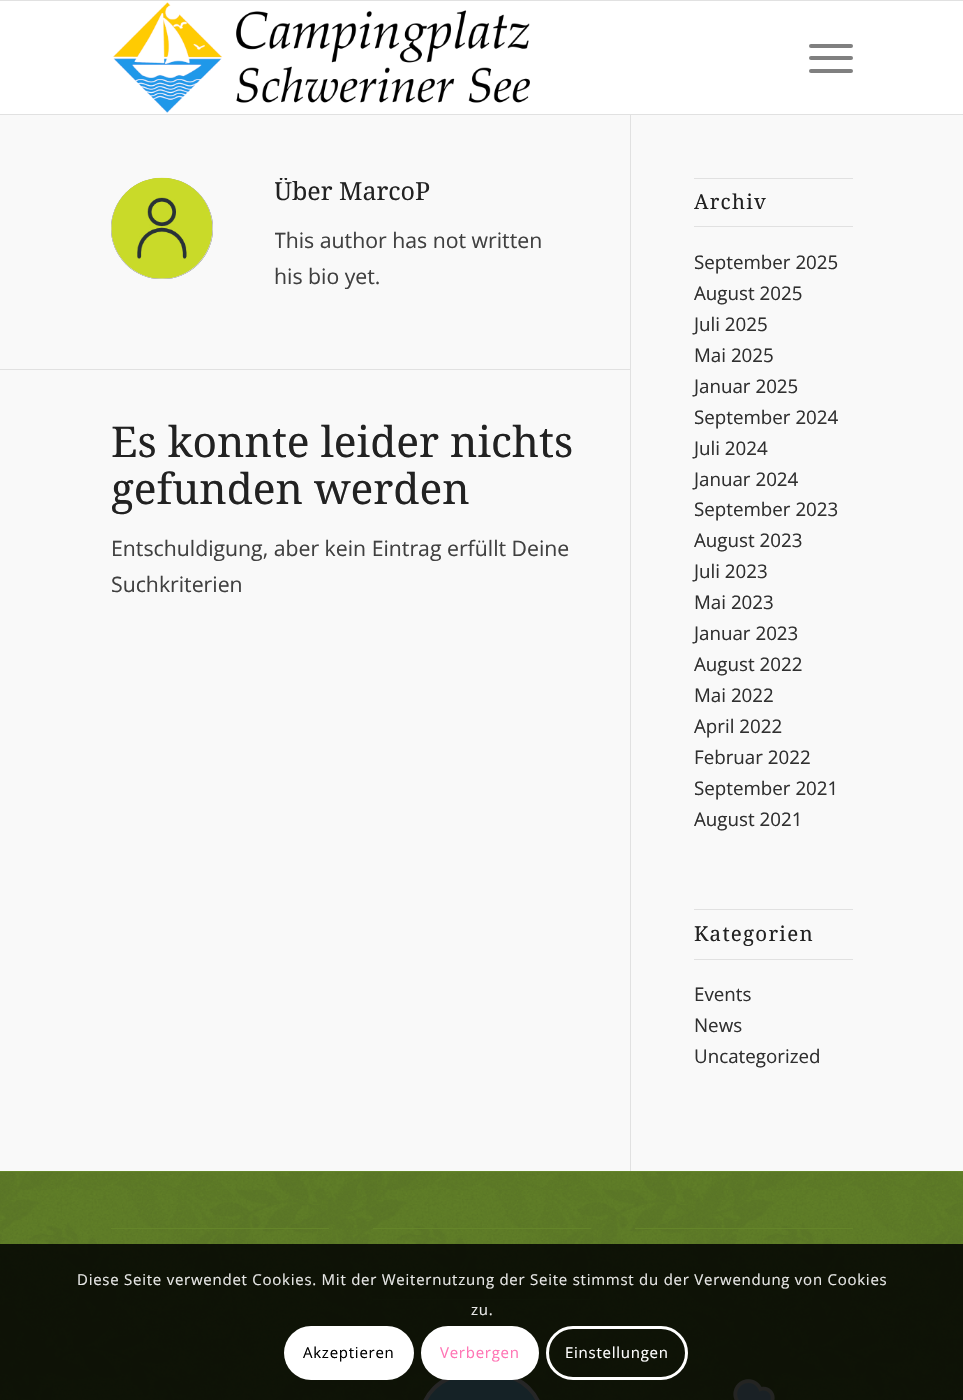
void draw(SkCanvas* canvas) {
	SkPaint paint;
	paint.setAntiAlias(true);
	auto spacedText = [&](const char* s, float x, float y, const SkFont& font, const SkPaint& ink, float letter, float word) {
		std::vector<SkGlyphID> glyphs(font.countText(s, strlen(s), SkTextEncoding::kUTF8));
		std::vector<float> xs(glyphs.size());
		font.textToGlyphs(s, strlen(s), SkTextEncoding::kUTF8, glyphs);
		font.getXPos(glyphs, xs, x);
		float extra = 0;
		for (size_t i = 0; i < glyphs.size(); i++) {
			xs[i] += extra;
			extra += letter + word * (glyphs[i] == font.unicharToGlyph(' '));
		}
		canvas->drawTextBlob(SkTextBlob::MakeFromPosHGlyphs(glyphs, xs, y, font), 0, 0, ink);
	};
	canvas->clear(0xfff9f9f9);
	paint.setColor(0xffe1e1e1);
	canvas->drawRect(SkRect::MakeXYWH(0, 0, 963, 1), paint);
	canvas->drawRect(SkRect::MakeXYWH(0, 114, 963, 1), paint);
	paint.setColor(0xffffffff);
	canvas->drawRect(SkRect::MakeXYWH(0, 1, 963, 113), paint);
	canvas->drawImageRect(SkImages::DeferredFromEncodedData(SkData::MakeFromFileName("img1.png")), SkRect::MakeXYWH(112, 2, 418, 111), SkSamplingOptions());
	paint.setColor(0xff808080);
	canvas->drawRoundRect(SkRect::MakeXYWH(809, 56, 44, 4), 2, 2, paint);
	canvas->drawRoundRect(SkRect::MakeXYWH(809, 44, 44, 4), 2, 2, paint);
	canvas->drawRoundRect(SkRect::MakeXYWH(809, 69, 44, 4), 2, 2, paint);
	paint.setColor(0xff303030);
	canvas->drawRoundRect(SkRect::MakeXYWH(111, 178, 102, 101), 50.5, 50.5, paint);
	paint.setColor(0xccffffff);
	canvas->drawRoundRect(SkRect::MakeXYWH(111, 178, 102, 101), 50.5, 50.5, paint);
	canvas->drawImageRect(SkImages::DeferredFromEncodedData(SkData::MakeFromFileName("img2.png")), SkRect::MakeXYWH(111, 177, 102, 102), SkSamplingOptions());
	canvas->save();
	canvas->clipRect(SkRect::MakeXYWH(275, 178, 293, 136));
	SkFont f1(fontMgr->matchFamilyStyle("Droid Serif", SkFontStyle::Normal()), 25);
	f1.setSubpixel(true);
	paint.setColor(0xff222222);
	canvas->drawString("Über", 274, 200, f1, paint);
	canvas->restore();
	canvas->drawString("MarcoP", 339, 200, f1, paint);
	canvas->save();
	canvas->clipRect(SkRect::MakeXYWH(275, 178, 293, 136));
	SkFont f2(fontMgr->matchFamilyStyle("Open Sans", SkFontStyle::Normal()), 21.25);
	f2.setSubpixel(true);
	paint.setColor(0xff404040);
	canvas->drawString("This author has not written", 274, 248, f2, paint);
	canvas->restore();
	canvas->drawString("his bio yet.", 274, 284, f2, paint);
	paint.setColor(0xffe1e1e1);
	canvas->drawRect(SkRect::MakeXYWH(0, 369, 630, 1), paint);
	SkFont f3(fontMgr->matchFamilyStyle("Droid Serif", SkFontStyle::Normal()), 42.5);
	f3.setSubpixel(true);
	paint.setColor(0xff222222);
	canvas->drawString("Es konnte leider nichts", 111, 457, f3, paint);
	canvas->drawString("gefunden werden", 111, 504, f3, paint);
	paint.setColor(0xff404040);
	canvas->drawString("Entschuldigung, aber kein Eintrag erfüllt Deine", 111, 556, f2, paint);
	canvas->drawString("Suchkriterien", 111, 592, f2, paint);
	paint.setColor(0xffe1e1e1);
	canvas->drawRect(SkRect::MakeXYWH(630, 115, 1, 1056), paint);
	canvas->drawRect(SkRect::MakeXYWH(694, 178, 159, 1), paint);
	canvas->drawRect(SkRect::MakeXYWH(694, 226, 159, 1), paint);
	SkFont f4(fontMgr->matchFamilyStyle("Droid Serif", SkFontStyle::Normal()), 20.5);
	f4.setSubpixel(true);
	paint.setColor(0xff222222);
	spacedText("Archiv", 694, 209, f4, paint, 1.25, 0);
	SkFont f5(fontMgr->matchFamilyStyle("Open Sans", SkFontStyle::Normal()), 18.75);
	f5.setSubpixel(true);
	paint.setColor(0xff303030);
	canvas->drawString("September 2025", 694, 269, f5, paint);
	canvas->drawString("August 2025", 694, 300, f5, paint);
	canvas->drawString("Juli 2025", 694, 331, f5, paint);
	canvas->drawString("Mai 2025", 694, 362, f5, paint);
	canvas->drawString("Januar 2025", 694, 393, f5, paint);
	canvas->drawString("September 2024", 694, 424, f5, paint);
	canvas->drawString("Juli 2024", 694, 455, f5, paint);
	canvas->drawString("Januar 2024", 694, 486, f5, paint);
	canvas->drawString("September 2023", 694, 516, f5, paint);
	canvas->drawString("August 2023", 694, 547, f5, paint);
	canvas->drawString("Juli 2023", 694, 578, f5, paint);
	canvas->drawString("Mai 2023", 694, 609, f5, paint);
	canvas->drawString("Januar 2023", 694, 640, f5, paint);
	canvas->drawString("August 2022", 694, 671, f5, paint);
	canvas->drawString("Mai 2022", 694, 702, f5, paint);
	canvas->drawString("April 2022", 694, 733, f5, paint);
	canvas->drawString("Februar 2022", 694, 764, f5, paint);
	canvas->drawString("September 2021", 694, 795, f5, paint);
	canvas->drawString("August 2021", 694, 826, f5, paint);
	paint.setColor(0xffe1e1e1);
	canvas->drawRect(SkRect::MakeXYWH(694, 909, 159, 1), paint);
	canvas->drawRect(SkRect::MakeXYWH(694, 959, 159, 1), paint);
	paint.setColor(0xff222222);
	spacedText("Kategorien", 694, 941, f4, paint, 1.25, 0);
	paint.setColor(0xff303030);
	canvas->drawString("Events", 694, 1001, f5, paint);
	canvas->drawString("News", 694, 1032, f5, paint);
	canvas->drawString("Uncategorized", 694, 1063, f5, paint);
	paint.setColor(0xff658529);
	canvas->drawRect(SkRect::MakeXYWH(0, 1171, 963, 229), paint);
	canvas->drawImageRect(SkImages::DeferredFromEncodedData(SkData::MakeFromFileName("img3.png")), SkRect::MakeXYWH(0, 1172, 963, 228), SkSamplingOptions());
	canvas->drawRect(SkRect::MakeXYWH(111, 1228, 218, 1), paint);
	canvas->drawRect(SkRect::MakeXYWH(111, 1276, 218, 1), paint);
	canvas->drawRect(SkRect::MakeXYWH(373, 1228, 218, 1), paint);
	canvas->drawRect(SkRect::MakeXYWH(373, 1299, 218, 1), paint);
	paint.setColor(0xff8de2ff);
	canvas->drawRoundRect(SkRect::MakeXYWH(421, 1375, 121, 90), 60.5, 60.5, paint);
	paint.setStroke(true);
	paint.setStrokeWidth(4);
	paint.setColor(0xffffffff);
	canvas->drawRoundRect(SkRect::MakeXYWH(421, 1375, 121, 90), 60.5, 60.5, paint);
	paint.setStroke(false);
	paint.setColor(0xff658529);
	canvas->drawRect(SkRect::MakeXYWH(635, 1228, 218, 1), paint);
	canvas->drawRect(SkRect::MakeXYWH(635, 1276, 218, 1), paint);
	canvas->drawImageRect(SkImages::DeferredFromEncodedData(SkData::MakeFromFileName("img4.png")), SkRect::MakeXYWH(733, 1379, 42, 21), SkSamplingOptions());
	paint.setColor(0xd9000000);
	canvas->drawRect(SkRect::MakeXYWH(0, 1244, 963, 156), paint);
	SkFont f6(fontMgr->matchFamilyStyle("Open Sans", SkFontStyle::Normal()), 15);
	f6.setSubpixel(true);
	paint.setColor(0xffe7e7e6);
	spacedText("Diese Seite verwendet Cookies. Mit der Weiternutzung der Seite stimmst du der Verwendung von Cookies", 77, 1285, f6, paint, 0.75, 0);
	spacedText("zu.", 471, 1315, f6, paint, 0.75, 0);
	paint.setColor(0xffffffff);
	canvas->drawRoundRect(SkRect::MakeXYWH(284, 1326, 130, 54), 27, 27, paint);
	paint.setColor(0xff000000);
	spacedText("Akzeptieren", 303, 1358, f6, paint, 0.75, 0);
	paint.setColor(0xffffffff);
	canvas->drawRoundRect(SkRect::MakeXYWH(422.5, 1327.5, 115, 51), 25.5, 25.5, paint);
	paint.setStroke(true);
	paint.setStrokeWidth(3);
	canvas->drawRoundRect(SkRect::MakeXYWH(422.5, 1327.5, 115, 51), 25.5, 25.5, paint);
	paint.setStroke(false);
	paint.setColor(0xffff75b5);
	spacedText("Verbergen", 440, 1358, f6, paint, 0.75, 0);
	paint.setStroke(true);
	paint.setColor(0xffffffff);
	canvas->drawRoundRect(SkRect::MakeXYWH(547.5, 1327.5, 139, 51), 25.5, 25.5, paint);
	paint.setStroke(false);
	spacedText("Einstellungen", 565, 1358, f6, paint, 0.75, 0);
}
